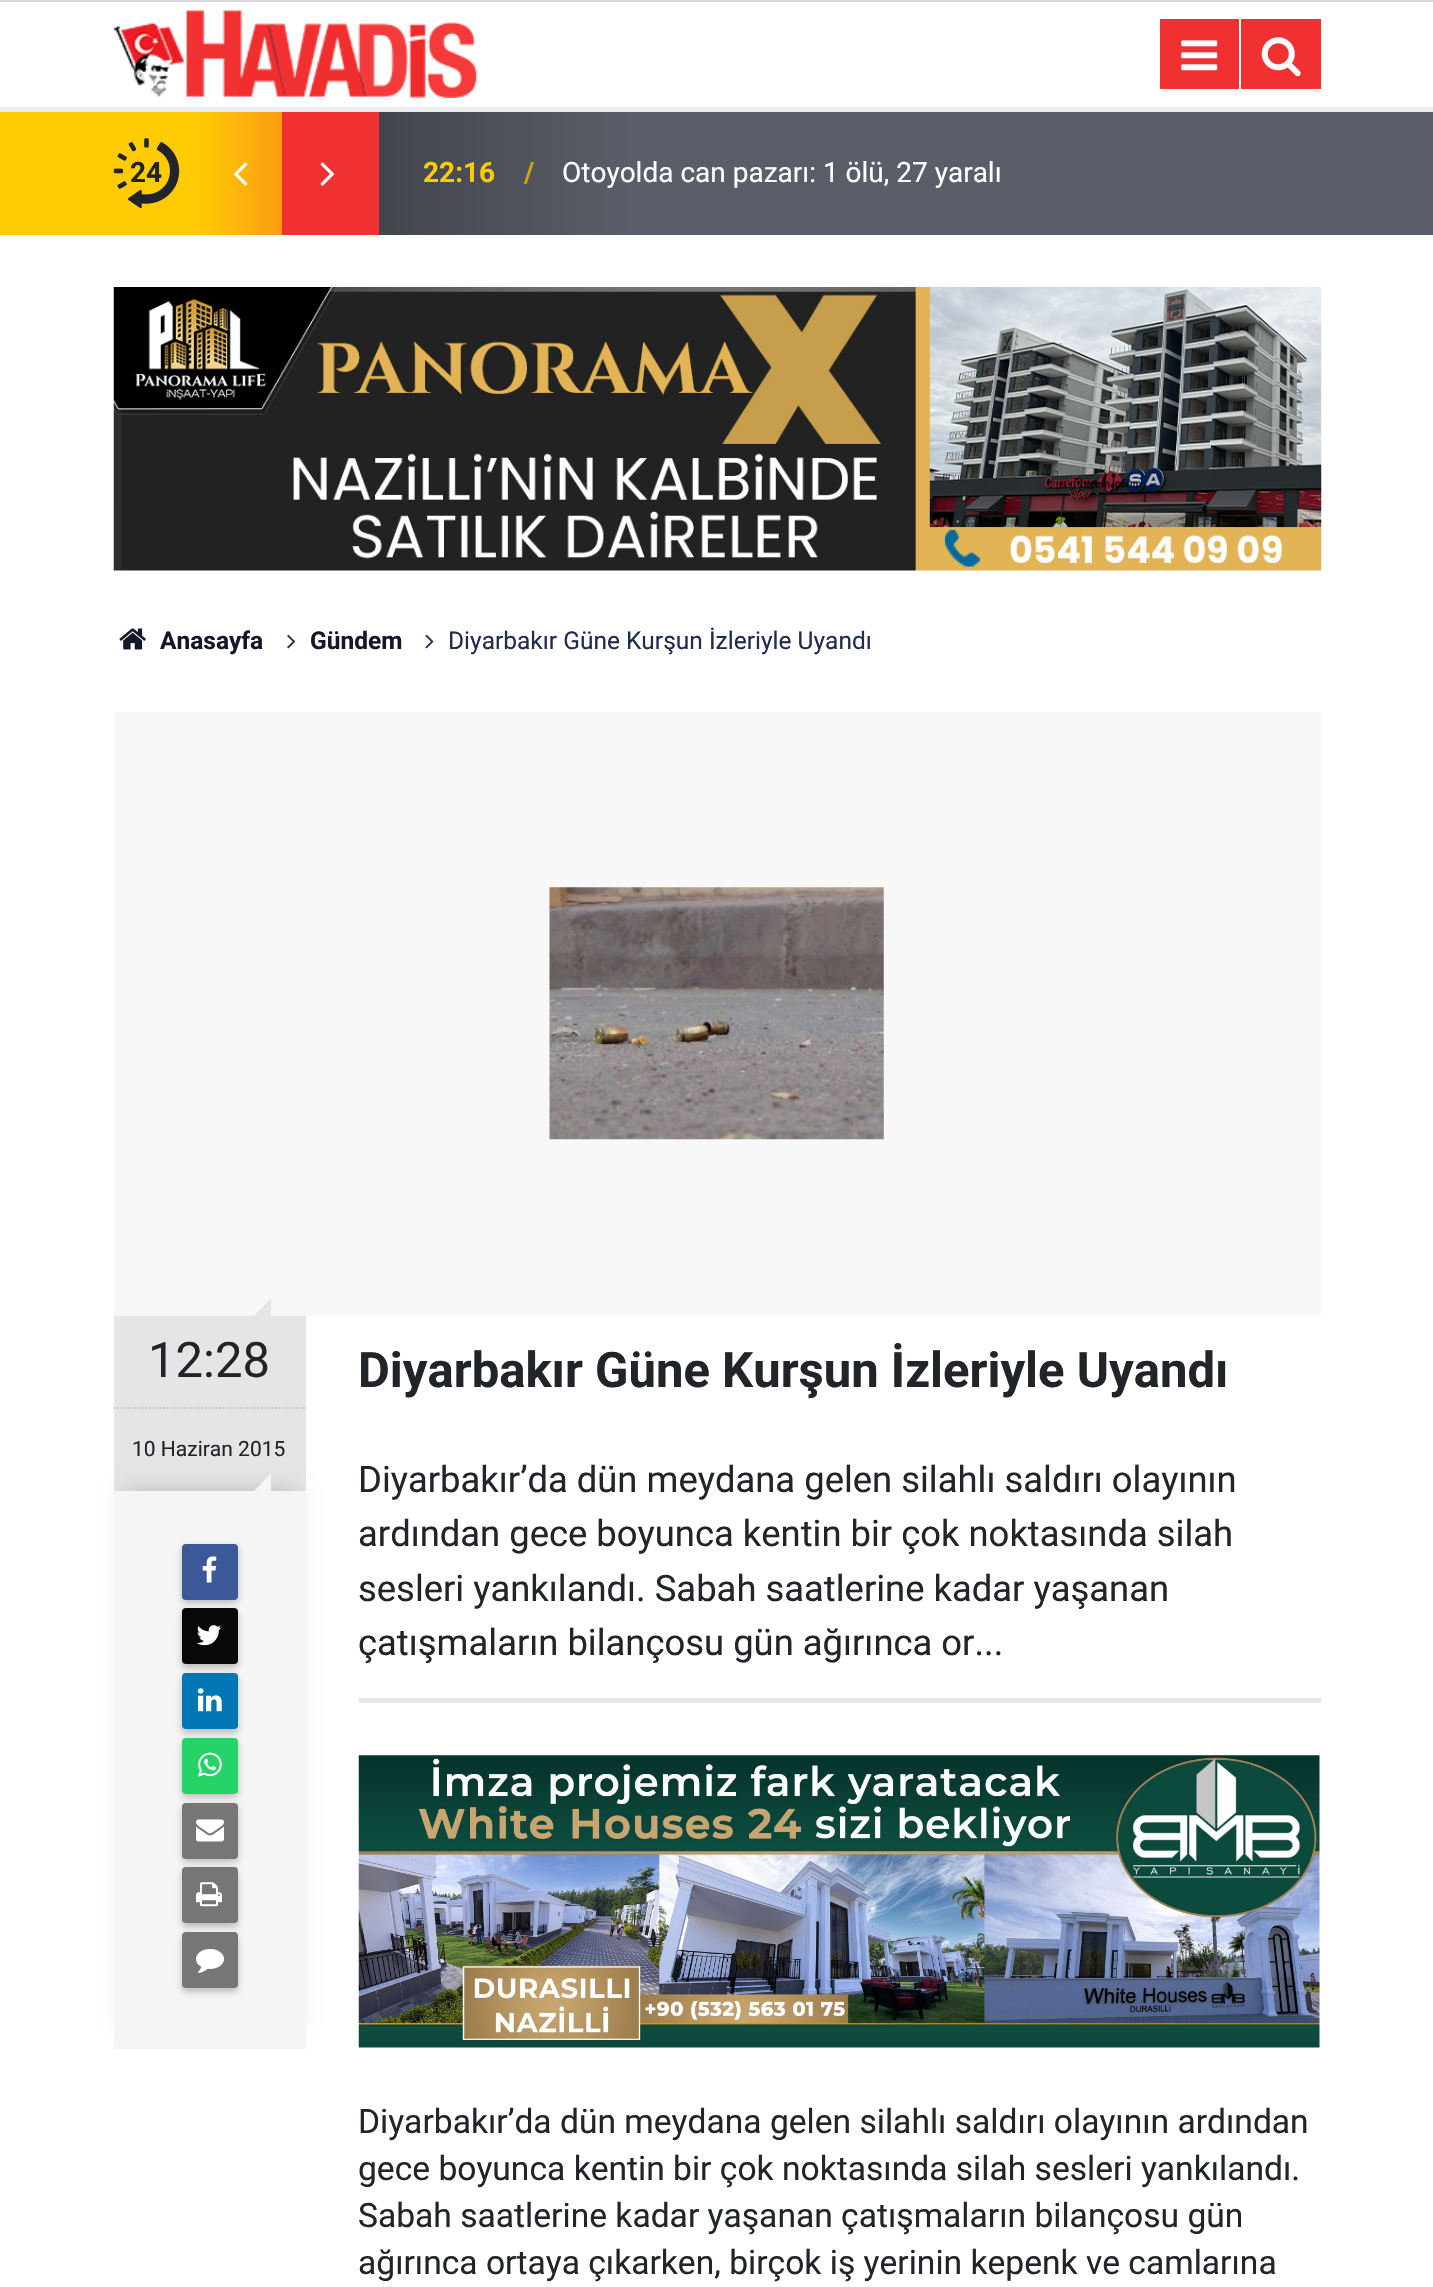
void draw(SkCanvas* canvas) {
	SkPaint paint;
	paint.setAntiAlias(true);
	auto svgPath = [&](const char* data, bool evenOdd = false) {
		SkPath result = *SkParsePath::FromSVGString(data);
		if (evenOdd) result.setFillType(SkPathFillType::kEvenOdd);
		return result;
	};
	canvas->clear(0xffffffff);
	paint.setColor(0xffd7dae1);
	canvas->drawRect(SkRect::MakeXYWH(0, 0, 1433, 2), paint);
	paint.setColor(0xffecedee);
	canvas->drawRect(SkRect::MakeXYWH(0, 107, 1433, 5), paint);
	canvas->drawImageRect(SkImages::DeferredFromEncodedData(SkData::MakeFromFileName("img1.png")), SkRect::MakeXYWH(113, 10, 364, 88), SkSamplingOptions());
	paint.setColor(0xfff13131);
	canvas->drawRect(SkRect::MakeXYWH(1160, 19, 79, 70), paint);
	canvas->drawImageRect(SkImages::DeferredFromEncodedData(SkData::MakeFromFileName("img2.png")), SkRect::MakeXYWH(1181, 40, 37, 31), SkSamplingOptions());
	canvas->drawRect(SkRect::MakeXYWH(1241, 19, 80, 70), paint);
	canvas->drawImageRect(SkImages::DeferredFromEncodedData(SkData::MakeFromFileName("img3.png")), SkRect::MakeXYWH(1261, 37, 40, 40), SkSamplingOptions());
	paint.setColor(0xffffcb05);
	canvas->drawRect(SkRect::MakeXYWH(0, 112, 114, 123), paint);
	paint.setColor(0xff5b5e68);
	canvas->drawRect(SkRect::MakeXYWH(1321, 112, 112, 123), paint);
	{
		const SkColor colors[] = {0xffffcb05, 0xfffb9d12, 0xfff13131, 0xfff13131, 0xff43454d, 0xff5b5e68};
		const float stops[] = {0.07, 0.14, 0.14, 0.22, 0.22, 0.43};
		const SkPoint ends[] = {{113, 173}, {1320, 173}};
		paint.setShader(SkGradientShader::MakeLinear(ends, colors, stops, 6, SkTileMode::kClamp));
		paint.setAlpha(255);
	}
	canvas->drawRect(SkRect::MakeXYWH(114, 112, 1207, 123), paint);
	canvas->drawImageRect(SkImages::DeferredFromEncodedData(SkData::MakeFromFileName("img4.png")), SkRect::MakeXYWH(113, 138, 67, 71), SkSamplingOptions());
	SkFont f1(fontMgr->matchFamilyStyle("Roboto", SkFontStyle::Bold()), 28);
	f1.setSubpixel(true);
	paint.setShader(nullptr);
	paint.setColor(0xff212529);
	canvas->drawString("24", 130, 182, f1, paint);
	canvas->drawImageRect(SkImages::DeferredFromEncodedData(SkData::MakeFromFileName("img5.png")), SkRect::MakeXYWH(233, 162, 15, 24), SkSamplingOptions());
	canvas->drawImageRect(SkImages::DeferredFromEncodedData(SkData::MakeFromFileName("img6.png")), SkRect::MakeXYWH(320, 162, 15, 24), SkSamplingOptions());
	paint.setColor(0xffffcb05);
	canvas->drawString("22:16", 423, 182, f1, paint);
	paint.setColor(0xffd1a600);
	canvas->drawString("/", 524, 182, f1, paint);
	SkFont f2(fontMgr->matchFamilyStyle("Roboto", SkFontStyle::Normal()), 28);
	f2.setSubpixel(true);
	paint.setColor(0xffffffff);
	canvas->drawString("Otoyolda can pazarı: 1 ölü, 27 yaralı", 562, 182, f2, paint);
	canvas->drawImageRect(SkImages::DeferredFromEncodedData(SkData::MakeFromFileName("img7.png")), SkRect::MakeXYWH(113, 287, 1209, 284), SkSamplingOptions());
	canvas->drawImageRect(SkImages::DeferredFromEncodedData(SkData::MakeFromFileName("img8.png")), SkRect::MakeXYWH(119, 628, 27, 22), SkSamplingOptions());
	SkFont f3(fontMgr->matchFamilyStyle("Roboto", SkFontStyle::Bold()), 24.5);
	f3.setSubpixel(true);
	paint.setColor(0xff12182a);
	canvas->drawString("Anasayfa", 160, 649, f3, paint);
	canvas->drawImageRect(SkImages::DeferredFromEncodedData(SkData::MakeFromFileName("img9.png")), SkRect::MakeXYWH(287, 634, 9, 15), SkSamplingOptions());
	canvas->drawString("Gündem", 310, 649, f3, paint);
	canvas->drawImageRect(SkImages::DeferredFromEncodedData(SkData::MakeFromFileName("img10.png")), SkRect::MakeXYWH(425, 634, 9, 15), SkSamplingOptions());
	SkFont f4(fontMgr->matchFamilyStyle("Roboto", SkFontStyle::Normal()), 24.5);
	f4.setSubpixel(true);
	paint.setColor(0xff212c4e);
	canvas->drawString("Diyarbakır Güne Kurşun İzleriyle Uyandı", 448, 649, f4, paint);
	paint.setColor(0xfff8f8f8);
	canvas->drawRect(SkRect::MakeXYWH(114, 712, 1207, 604), paint);
	canvas->drawImageRect(SkImages::DeferredFromEncodedData(SkData::MakeFromFileName("img11.png")), SkRect::MakeXYWH(549, 887, 335, 253), SkSamplingOptions());
	paint.setColor(0xffe5e5e5);
	canvas->drawRect(SkRect::MakeXYWH(114, 1316, 192, 175), paint);
	canvas->drawPath(svgPath("M271 1316H254L271 1298.5Z"), paint);
	SkFont f5(fontMgr->matchFamilyStyle("Roboto", SkFontStyle::Normal()), 49);
	f5.setSubpixel(true);
	paint.setColor(0xff212529);
	canvas->drawString("12:28", 148, 1377, f5, paint);
	paint.setStroke(true);
	paint.setStrokeWidth(1.8);
	paint.setColor(0xffc3c3c3);
	paint.setPathEffect(SkDashPathEffect::Make({{1.75f, 1.75f}}, 0));
	canvas->drawPath(svgPath("M114 1408H306"), paint);
	paint.setPathEffect(nullptr);
	SkFont f6(fontMgr->matchFamilyStyle("Roboto", SkFontStyle::Normal()), 21);
	f6.setSubpixel(true);
	paint.setStroke(false);
	paint.setColor(0xff212529);
	canvas->drawString("10 Haziran 2015", 132, 1456, f6, paint);
	paint.setColor(0x26000000);
	paint.setMaskFilter(SkMaskFilter::MakeBlur(kNormal_SkBlurStyle, 9));
	canvas->drawRect(SkRect::MakeXYWH(123, 1488, 175, 540), paint);
	paint.setMaskFilter(nullptr);
	paint.setColor(0xfff5f5f5);
	canvas->drawRect(SkRect::MakeXYWH(114, 1491, 192, 558), paint);
	canvas->drawPath(svgPath("M271 1491H254L271 1473.5Z"), paint);
	paint.setColor(0x4d323232);
	paint.setMaskFilter(SkMaskFilter::MakeBlur(kNormal_SkBlurStyle, 3.5));
	canvas->drawRoundRect(SkRect::MakeXYWH(182, 1547, 56, 56), 4, 4, paint);
	paint.setMaskFilter(nullptr);
	paint.setColor(0xff3b5999);
	canvas->drawRoundRect(SkRect::MakeXYWH(182, 1544, 56, 56), 4, 4, paint);
	canvas->drawImageRect(SkImages::DeferredFromEncodedData(SkData::MakeFromFileName("img12.png")), SkRect::MakeXYWH(202, 1556, 15, 27), SkSamplingOptions());
	paint.setColor(0x4d323232);
	paint.setMaskFilter(SkMaskFilter::MakeBlur(kNormal_SkBlurStyle, 3.5));
	canvas->drawRoundRect(SkRect::MakeXYWH(182, 1612, 56, 56), 4, 4, paint);
	paint.setMaskFilter(nullptr);
	paint.setColor(0xff080808);
	canvas->drawRoundRect(SkRect::MakeXYWH(182, 1608, 56, 56), 4, 4, paint);
	canvas->drawImageRect(SkImages::DeferredFromEncodedData(SkData::MakeFromFileName("img13.png")), SkRect::MakeXYWH(197, 1625, 25, 21), SkSamplingOptions());
	paint.setColor(0x4d323232);
	paint.setMaskFilter(SkMaskFilter::MakeBlur(kNormal_SkBlurStyle, 3.5));
	canvas->drawRoundRect(SkRect::MakeXYWH(182, 1677, 56, 56), 4, 4, paint);
	paint.setMaskFilter(nullptr);
	paint.setColor(0xff0077b5);
	canvas->drawRoundRect(SkRect::MakeXYWH(182, 1673, 56, 56), 4, 4, paint);
	canvas->drawImageRect(SkImages::DeferredFromEncodedData(SkData::MakeFromFileName("img14.png")), SkRect::MakeXYWH(197, 1688, 25, 24), SkSamplingOptions());
	paint.setColor(0x4d323232);
	paint.setMaskFilter(SkMaskFilter::MakeBlur(kNormal_SkBlurStyle, 3.5));
	canvas->drawRoundRect(SkRect::MakeXYWH(182, 1741, 56, 56), 4, 4, paint);
	paint.setMaskFilter(nullptr);
	paint.setColor(0xff25d366);
	canvas->drawRoundRect(SkRect::MakeXYWH(182, 1738, 56, 56), 4, 4, paint);
	canvas->drawImageRect(SkImages::DeferredFromEncodedData(SkData::MakeFromFileName("img15.png")), SkRect::MakeXYWH(197, 1752, 25, 25), SkSamplingOptions());
	paint.setColor(0x4d323232);
	paint.setMaskFilter(SkMaskFilter::MakeBlur(kNormal_SkBlurStyle, 3.5));
	canvas->drawRoundRect(SkRect::MakeXYWH(182, 1806, 56, 56), 4, 4, paint);
	paint.setMaskFilter(nullptr);
	paint.setColor(0xff767676);
	canvas->drawRoundRect(SkRect::MakeXYWH(182, 1803, 56, 56), 4, 4, paint);
	canvas->drawImageRect(SkImages::DeferredFromEncodedData(SkData::MakeFromFileName("img16.png")), SkRect::MakeXYWH(196, 1819, 28, 23), SkSamplingOptions());
	paint.setColor(0x4d323232);
	paint.setMaskFilter(SkMaskFilter::MakeBlur(kNormal_SkBlurStyle, 3.5));
	canvas->drawRoundRect(SkRect::MakeXYWH(182, 1871, 56, 56), 4, 4, paint);
	paint.setMaskFilter(nullptr);
	paint.setColor(0xff767676);
	canvas->drawRoundRect(SkRect::MakeXYWH(182, 1867, 56, 56), 4, 4, paint);
	canvas->drawImageRect(SkImages::DeferredFromEncodedData(SkData::MakeFromFileName("img17.png")), SkRect::MakeXYWH(196, 1882, 26, 25), SkSamplingOptions());
	paint.setColor(0x4d323232);
	paint.setMaskFilter(SkMaskFilter::MakeBlur(kNormal_SkBlurStyle, 3.5));
	canvas->drawRoundRect(SkRect::MakeXYWH(182, 1936, 56, 56), 4, 4, paint);
	paint.setMaskFilter(nullptr);
	paint.setColor(0xff767676);
	canvas->drawRoundRect(SkRect::MakeXYWH(182, 1932, 56, 56), 4, 4, paint);
	canvas->drawImageRect(SkImages::DeferredFromEncodedData(SkData::MakeFromFileName("img18.png")), SkRect::MakeXYWH(196, 1949, 28, 24), SkSamplingOptions());
	paint.setColor(0xffe9e9e9);
	canvas->drawRect(SkRect::MakeXYWH(359, 1698, 962, 5), paint);
	SkFont f7(fontMgr->matchFamilyStyle("Roboto", SkFontStyle::Bold()), 49);
	f7.setSubpixel(true);
	paint.setColor(0xff212529);
	canvas->drawString("Diyarbakır Güne Kurşun İzleriyle Uyandı", 358, 1387, f7, paint);
	SkFont f8(fontMgr->matchFamilyStyle("Roboto", SkFontStyle::Normal()), 36.4);
	f8.setSubpixel(true);
	canvas->drawString("Diyarbakır’da dün meydana gelen silahlı saldırı olayının", 358, 1492, f8, paint);
	canvas->drawString("ardından gece boyunca kentin bir çok noktasında silah", 358, 1546, f8, paint);
	canvas->drawString("sesleri yankılandı. Sabah saatlerine kadar yaşanan", 358, 1601, f8, paint);
	canvas->drawString("çatışmaların bilançosu gün ağırınca or...", 358, 1655, f8, paint);
	canvas->drawImageRect(SkImages::DeferredFromEncodedData(SkData::MakeFromFileName("img19.png")), SkRect::MakeXYWH(358, 1755, 962, 293), SkSamplingOptions());
	SkFont f9(fontMgr->matchFamilyStyle("Roboto", SkFontStyle::Normal()), 33.6);
	f9.setSubpixel(true);
	canvas->drawString("Diyarbakır’da dün meydana gelen silahlı saldırı olayının ardından", 358, 2133, f9, paint);
	canvas->drawString("gece boyunca kentin bir çok noktasında silah sesleri yankılandı.", 358, 2180, f9, paint);
	canvas->drawString("Sabah saatlerine kadar yaşanan çatışmaların bilançosu gün", 358, 2227, f9, paint);
	canvas->drawString("ağırınca ortaya çıkarken, birçok iş yerinin kepenk ve camlarına", 358, 2274, f9, paint);
}
